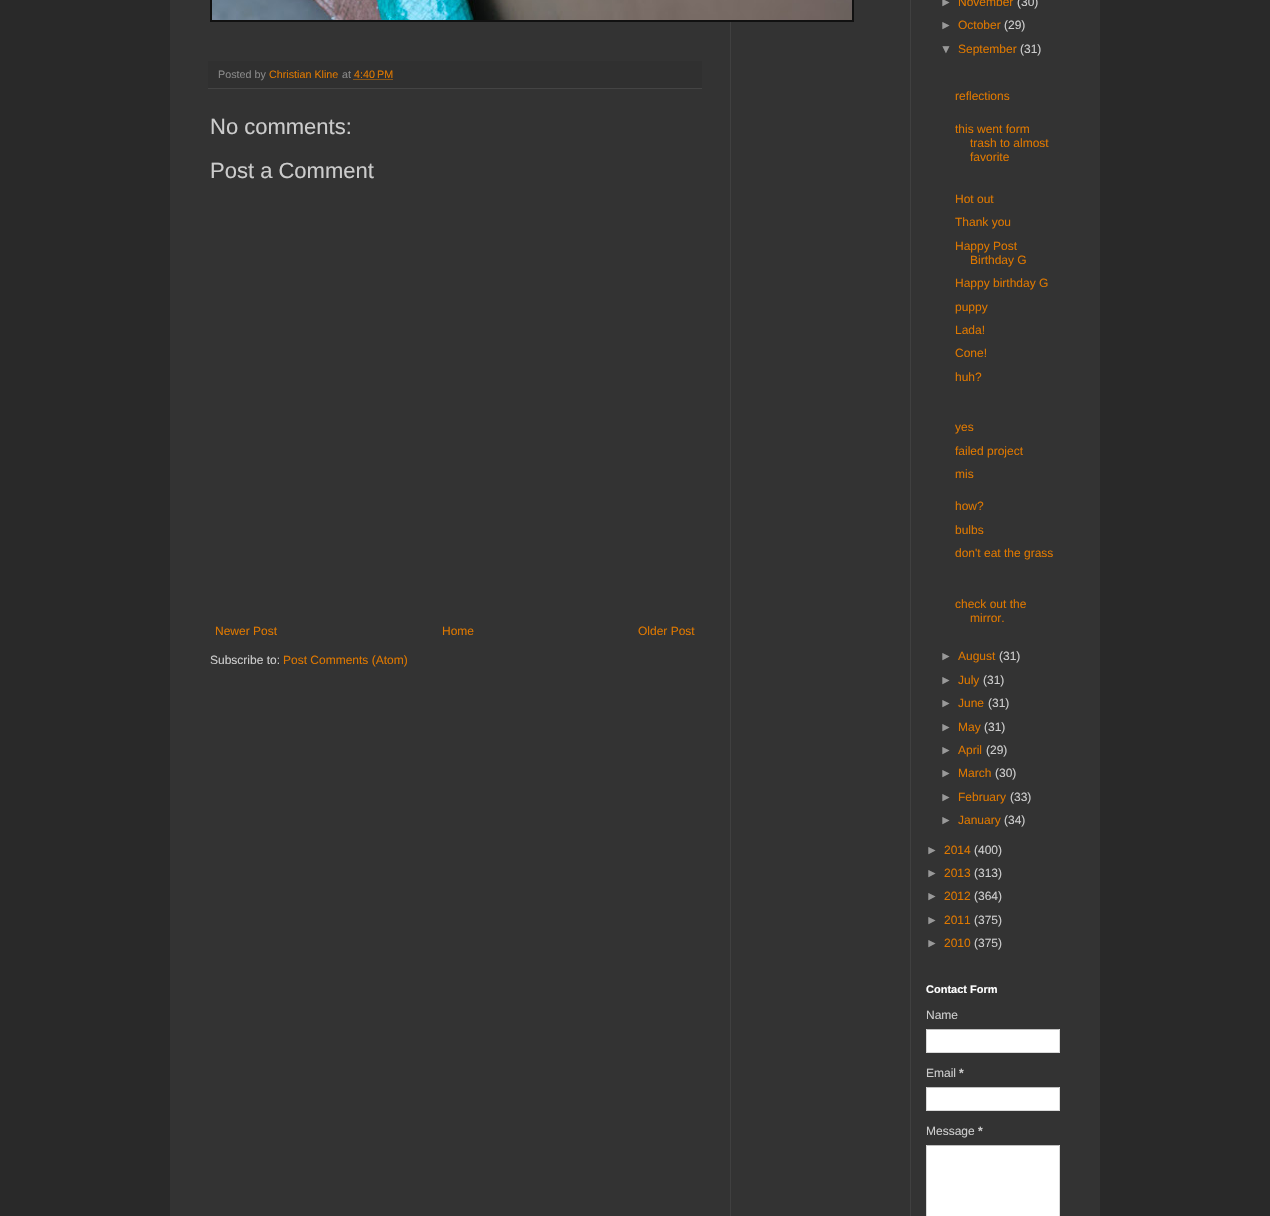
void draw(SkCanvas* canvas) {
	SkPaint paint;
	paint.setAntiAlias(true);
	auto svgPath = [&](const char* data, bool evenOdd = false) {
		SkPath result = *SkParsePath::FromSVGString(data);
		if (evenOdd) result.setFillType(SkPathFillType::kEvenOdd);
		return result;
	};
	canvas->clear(0xff292929);
	paint.setColor(0xff333333);
	canvas->drawRect(SkRect::MakeXYWH(170, 0, 930, 1216), paint);
	paint.setColor(0xff111111);
	canvas->drawRect(SkRect::MakeXYWH(210, 0, 644, 22), paint);
	canvas->drawImageRect(SkImages::DeferredFromEncodedData(SkData::MakeFromFileName("img1.png")), SkRect::MakeXYWH(212, 0, 640, 20), SkSamplingOptions());
	paint.setColor(0xff303030);
	canvas->drawRect(SkRect::MakeXYWH(208, 61, 494, 27), paint);
	paint.setColor(0xff444444);
	canvas->drawRect(SkRect::MakeXYWH(208, 88, 494, 1), paint);
	SkFont f1(fontMgr->matchFamilyStyle("Liberation Sans", SkFontStyle::Normal()), 10.75);
	f1.setSubpixel(true);
	paint.setColor(0xff888888);
	canvas->drawString("Posted by", 218, 78, f1, paint);
	paint.setColor(0xffdd7700);
	canvas->drawString("Christian Kline", 269, 78, f1, paint);
	paint.setColor(0xff888888);
	canvas->drawString("at", 342, 78, f1, paint);
	paint.setColor(0xffdd7700);
	canvas->drawString("4:40 PM", 354, 78, f1, paint);
	paint.setStroke(true);
	paint.setStrokeWidth(1);
	paint.setPathEffect(SkDashPathEffect::Make({{1, 1}}, 0));
	canvas->drawPath(svgPath("M353.5 79.5H393"), paint);
	paint.setPathEffect(nullptr);
	SkFont f2(fontMgr->matchFamilyStyle("Liberation Sans", SkFontStyle::Normal()), 22);
	f2.setSubpixel(true);
	paint.setStroke(false);
	paint.setColor(0xffcccccc);
	canvas->drawString("No comments:", 210, 134, f2, paint);
	canvas->drawString("Post a Comment", 210, 178, f2, paint);
	SkFont f3(fontMgr->matchFamilyStyle("Liberation Sans", SkFontStyle::Normal()), 12);
	f3.setSubpixel(true);
	paint.setColor(0xffdd7700);
	canvas->drawString("Newer Post", 215, 635, f3, paint);
	canvas->drawString("Home", 442, 635, f3, paint);
	canvas->drawString("Older Post", 638, 635, f3, paint);
	paint.setColor(0xffcccccc);
	canvas->drawString("Subscribe to:", 210, 664, f3, paint);
	paint.setColor(0xffdd7700);
	canvas->drawString("Post Comments (Atom)", 283, 664, f3, paint);
	paint.setColor(0xff404040);
	canvas->drawRect(SkRect::MakeXYWH(910, 0, 1, 1216), paint);
	paint.setColor(0xff999999);
	canvas->drawString("►", 940, 6, f3, paint);
	paint.setColor(0xffdd7700);
	canvas->drawString("November", 958, 6, f3, paint);
	paint.setColor(0xffcccccc);
	canvas->drawString("(30)", 1017, 6, f3, paint);
	paint.setColor(0xff999999);
	canvas->drawString("►", 940, 29, f3, paint);
	paint.setColor(0xffdd7700);
	canvas->drawString("October", 958, 29, f3, paint);
	paint.setColor(0xffcccccc);
	canvas->drawString("(29)", 1004, 29, f3, paint);
	paint.setColor(0xff999999);
	canvas->drawString("▼", 940, 53, f3, paint);
	paint.setColor(0xffdd7700);
	canvas->drawString("September", 958, 53, f3, paint);
	paint.setColor(0xffcccccc);
	canvas->drawString("(31)", 1020, 53, f3, paint);
	paint.setColor(0xffdd7700);
	canvas->drawString("reflections", 955, 100, f3, paint);
	canvas->drawString("this went form", 955, 133, f3, paint);
	canvas->drawString("trash to almost", 970, 147, f3, paint);
	canvas->drawString("favorite", 970, 161, f3, paint);
	canvas->drawString("Hot out", 955, 203, f3, paint);
	canvas->drawString("Thank you", 955, 226, f3, paint);
	canvas->drawString("Happy Post", 955, 250, f3, paint);
	canvas->drawString("Birthday G", 970, 264, f3, paint);
	canvas->drawString("Happy birthday G", 955, 287, f3, paint);
	canvas->drawString("puppy", 955, 311, f3, paint);
	canvas->drawString("Lada!", 955, 334, f3, paint);
	canvas->drawString("Cone!", 955, 357, f3, paint);
	canvas->drawString("huh?", 955, 381, f3, paint);
	canvas->drawString("yes", 955, 431, f3, paint);
	canvas->drawString("failed project", 955, 455, f3, paint);
	canvas->drawString("mis", 955, 478, f3, paint);
	canvas->drawString("how?", 955, 510, f3, paint);
	canvas->drawString("bulbs", 955, 534, f3, paint);
	canvas->drawString("don't eat the grass", 955, 557, f3, paint);
	canvas->drawString("check out the", 955, 608, f3, paint);
	canvas->drawString("mirror.", 970, 622, f3, paint);
	paint.setColor(0xff999999);
	canvas->drawString("►", 940, 660, f3, paint);
	paint.setColor(0xffdd7700);
	canvas->drawString("August", 958, 660, f3, paint);
	paint.setColor(0xffcccccc);
	canvas->drawString("(31)", 999, 660, f3, paint);
	paint.setColor(0xff999999);
	canvas->drawString("►", 940, 684, f3, paint);
	paint.setColor(0xffdd7700);
	canvas->drawString("July", 958, 684, f3, paint);
	paint.setColor(0xffcccccc);
	canvas->drawString("(31)", 983, 684, f3, paint);
	paint.setColor(0xff999999);
	canvas->drawString("►", 940, 707, f3, paint);
	paint.setColor(0xffdd7700);
	canvas->drawString("June", 958, 707, f3, paint);
	paint.setColor(0xffcccccc);
	canvas->drawString("(31)", 988, 707, f3, paint);
	paint.setColor(0xff999999);
	canvas->drawString("►", 940, 731, f3, paint);
	paint.setColor(0xffdd7700);
	canvas->drawString("May", 958, 731, f3, paint);
	paint.setColor(0xffcccccc);
	canvas->drawString("(31)", 984, 731, f3, paint);
	paint.setColor(0xff999999);
	canvas->drawString("►", 940, 754, f3, paint);
	paint.setColor(0xffdd7700);
	canvas->drawString("April", 958, 754, f3, paint);
	paint.setColor(0xffcccccc);
	canvas->drawString("(29)", 986, 754, f3, paint);
	paint.setColor(0xff999999);
	canvas->drawString("►", 940, 777, f3, paint);
	paint.setColor(0xffdd7700);
	canvas->drawString("March", 958, 777, f3, paint);
	paint.setColor(0xffcccccc);
	canvas->drawString("(30)", 995, 777, f3, paint);
	paint.setColor(0xff999999);
	canvas->drawString("►", 940, 801, f3, paint);
	paint.setColor(0xffdd7700);
	canvas->drawString("February", 958, 801, f3, paint);
	paint.setColor(0xffcccccc);
	canvas->drawString("(33)", 1010, 801, f3, paint);
	paint.setColor(0xff999999);
	canvas->drawString("►", 940, 824, f3, paint);
	paint.setColor(0xffdd7700);
	canvas->drawString("January", 958, 824, f3, paint);
	paint.setColor(0xffcccccc);
	canvas->drawString("(34)", 1004, 824, f3, paint);
	paint.setColor(0xff999999);
	canvas->drawString("►", 926, 854, f3, paint);
	paint.setColor(0xffdd7700);
	canvas->drawString("2014", 944, 854, f3, paint);
	paint.setColor(0xffcccccc);
	canvas->drawString("(400)", 974, 854, f3, paint);
	paint.setColor(0xff999999);
	canvas->drawString("►", 926, 877, f3, paint);
	paint.setColor(0xffdd7700);
	canvas->drawString("2013", 944, 877, f3, paint);
	paint.setColor(0xffcccccc);
	canvas->drawString("(313)", 974, 877, f3, paint);
	paint.setColor(0xff999999);
	canvas->drawString("►", 926, 900, f3, paint);
	paint.setColor(0xffdd7700);
	canvas->drawString("2012", 944, 900, f3, paint);
	paint.setColor(0xffcccccc);
	canvas->drawString("(364)", 974, 900, f3, paint);
	paint.setColor(0xff999999);
	canvas->drawString("►", 926, 924, f3, paint);
	paint.setColor(0xffdd7700);
	canvas->drawString("2011", 944, 924, f3, paint);
	paint.setColor(0xffcccccc);
	canvas->drawString("(375)", 974, 924, f3, paint);
	paint.setColor(0xff999999);
	canvas->drawString("►", 926, 947, f3, paint);
	paint.setColor(0xffdd7700);
	canvas->drawString("2010", 944, 947, f3, paint);
	paint.setColor(0xffcccccc);
	canvas->drawString("(375)", 974, 947, f3, paint);
	SkFont f4(fontMgr->matchFamilyStyle("Liberation Sans", SkFontStyle::Bold()), 11);
	f4.setSubpixel(true);
	paint.setColor(0xffffffff);
	canvas->drawString("Contact Form", 926, 993, f4, paint);
	paint.setColor(0xffcccccc);
	canvas->drawString("Name", 926, 1019, f3, paint);
	paint.setColor(0xffffffff);
	canvas->drawRect(SkRect::MakeXYWH(927, 1030, 132, 22), paint);
	paint.setColor(0xffc0c0c0);
	canvas->drawRect(SkRect::MakeXYWH(926, 1029, 134, 1), paint);
	paint.setColor(0xffd9d9d9);
	canvas->drawRect(SkRect::MakeXYWH(1059, 1029, 1, 24), paint);
	canvas->drawRect(SkRect::MakeXYWH(926, 1052, 134, 1), paint);
	canvas->drawRect(SkRect::MakeXYWH(926, 1029, 1, 24), paint);
	paint.setColor(0xffcccccc);
	canvas->drawString("Email", 926, 1077, f3, paint);
	SkFont f5(fontMgr->matchFamilyStyle("Liberation Sans", SkFontStyle::Bold()), 12);
	f5.setSubpixel(true);
	canvas->drawString("*", 959, 1077, f5, paint);
	paint.setColor(0xffffffff);
	canvas->drawRect(SkRect::MakeXYWH(927, 1088, 132, 22), paint);
	paint.setColor(0xffc0c0c0);
	canvas->drawRect(SkRect::MakeXYWH(926, 1087, 134, 1), paint);
	paint.setColor(0xffd9d9d9);
	canvas->drawRect(SkRect::MakeXYWH(1059, 1087, 1, 24), paint);
	canvas->drawRect(SkRect::MakeXYWH(926, 1110, 134, 1), paint);
	canvas->drawRect(SkRect::MakeXYWH(926, 1087, 1, 24), paint);
	paint.setColor(0xffcccccc);
	canvas->drawString("Message", 926, 1135, f3, paint);
	canvas->drawString("*", 978, 1135, f5, paint);
	paint.setColor(0xffffffff);
	canvas->drawRect(SkRect::MakeXYWH(927, 1146, 132, 70), paint);
	paint.setColor(0xffc0c0c0);
	canvas->drawRect(SkRect::MakeXYWH(926, 1145, 134, 1), paint);
	paint.setColor(0xffd9d9d9);
	canvas->drawRect(SkRect::MakeXYWH(1059, 1145, 1, 71), paint);
	canvas->drawRect(SkRect::MakeXYWH(926, 1145, 1, 71), paint);
	paint.setColor(0xff404040);
	canvas->drawRect(SkRect::MakeXYWH(730, 22, 1, 1194), paint);
}
